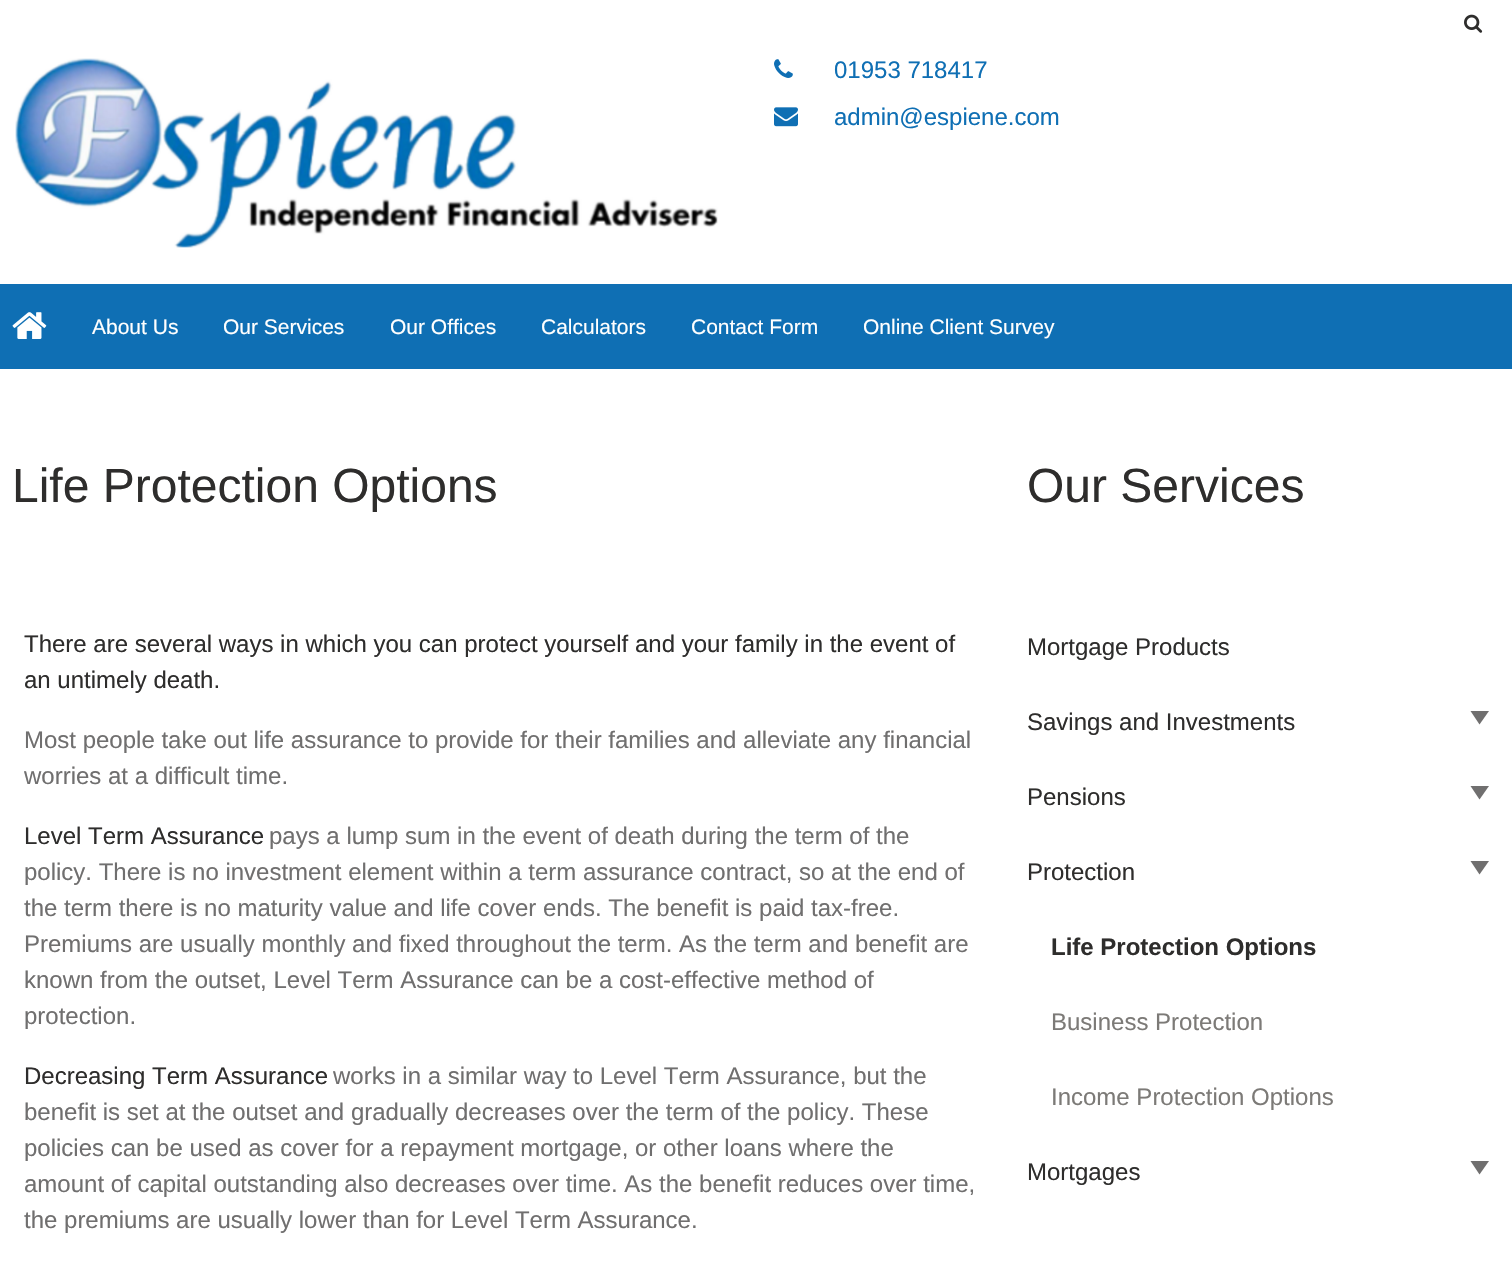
void draw(SkCanvas* canvas) {
	SkPaint paint;
	paint.setAntiAlias(true);
	auto svgPath = [&](const char* data, bool evenOdd = false) {
		SkPath result = *SkParsePath::FromSVGString(data);
		if (evenOdd) result.setFillType(SkPathFillType::kEvenOdd);
		return result;
	};
	canvas->clear(0xffffffff);
	canvas->drawImageRect(SkImages::DeferredFromEncodedData(SkData::MakeFromFileName("img1.png")), SkRect::MakeXYWH(1464, 14, 19, 19), SkSamplingOptions());
	canvas->drawImageRect(SkImages::DeferredFromEncodedData(SkData::MakeFromFileName("img2.png")), SkRect::MakeXYWH(15, 58, 703, 190), SkSamplingOptions());
	canvas->drawImageRect(SkImages::DeferredFromEncodedData(SkData::MakeFromFileName("img3.png")), SkRect::MakeXYWH(774, 59, 19, 19), SkSamplingOptions());
	SkFont f1(fontMgr->matchFamilyStyle("Liberation Sans", SkFontStyle::Normal()), 24);
	f1.setSubpixel(true);
	paint.setColor(0xff0f6fb4);
	canvas->drawString("01953 718417", 834, 78, f1, paint);
	canvas->drawImageRect(SkImages::DeferredFromEncodedData(SkData::MakeFromFileName("img4.png")), SkRect::MakeXYWH(774, 107, 24, 20), SkSamplingOptions());
	canvas->drawString("admin@espiene.com", 834, 125, f1, paint);
	canvas->drawRect(SkRect::MakeXYWH(0, 284, 1512, 85), paint);
	canvas->drawImageRect(SkImages::DeferredFromEncodedData(SkData::MakeFromFileName("img5.png")), SkRect::MakeXYWH(12, 312, 35, 27), SkSamplingOptions());
	SkFont f2(fontMgr->matchFamilyStyle("Liberation Sans", SkFontStyle::Normal()), 21);
	f2.setSubpixel(true);
	paint.setColor(0xffffffff);
	canvas->drawString("About Us", 92, 334, f2, paint);
	canvas->drawString("Our Services", 223, 334, f2, paint);
	canvas->drawString("Our Offices", 390, 334, f2, paint);
	canvas->drawString("Calculators", 541, 334, f2, paint);
	canvas->drawString("Contact Form", 691, 334, f2, paint);
	canvas->drawString("Online Client Survey", 863, 334, f2, paint);
	SkFont f3(fontMgr->matchFamilyStyle("Liberation Sans", SkFontStyle::Normal()), 48);
	f3.setSubpixel(true);
	paint.setColor(0xff2e2d2c);
	canvas->drawString("Life Protection Options", 12, 502, f3, paint);
	canvas->drawString("There are several ways in which you can protect yourself and your family in the event of", 24, 652, f1, paint);
	canvas->drawString("an untimely death.", 24, 688, f1, paint);
	paint.setColor(0xff706f6f);
	canvas->drawString("Most people take out life assurance to provide for their families and alleviate any financial", 24, 748, f1, paint);
	canvas->drawString("worries at a difficult time.", 24, 784, f1, paint);
	paint.setColor(0xff2e2d2c);
	canvas->drawString("Level Term Assurance", 24, 844, f1, paint);
	paint.setColor(0xff706f6f);
	canvas->drawString("pays a lump sum in the event of death during the term of the", 269, 844, f1, paint);
	canvas->drawString("policy. There is no investment element within a term assurance contract, so at the end of", 24, 880, f1, paint);
	canvas->drawString("the term there is no maturity value and life cover ends. The benefit is paid tax-free.", 24, 916, f1, paint);
	canvas->drawString("Premiums are usually monthly and fixed throughout the term. As the term and benefit are", 24, 952, f1, paint);
	canvas->drawString("known from the outset, Level Term Assurance can be a cost-effective method of", 24, 988, f1, paint);
	canvas->drawString("protection.", 24, 1024, f1, paint);
	paint.setColor(0xff2e2d2c);
	canvas->drawString("Decreasing Term Assurance", 24, 1084, f1, paint);
	paint.setColor(0xff706f6f);
	canvas->drawString("works in a similar way to Level Term Assurance, but the", 333, 1084, f1, paint);
	canvas->drawString("benefit is set at the outset and gradually decreases over the term of the policy. These", 24, 1120, f1, paint);
	canvas->drawString("policies can be used as cover for a repayment mortgage, or other loans where the", 24, 1156, f1, paint);
	canvas->drawString("amount of capital outstanding also decreases over time. As the benefit reduces over time,", 24, 1192, f1, paint);
	canvas->drawString("the premiums are usually lower than for Level Term Assurance.", 24, 1228, f1, paint);
	paint.setColor(0xff2e2d2c);
	canvas->drawString("Our Services", 1027, 502, f3, paint);
	canvas->drawString("Mortgage Products", 1027, 655, f1, paint);
	canvas->drawString("Savings and Investments", 1027, 730, f1, paint);
	paint.setColor(0xff706f6f);
	canvas->drawPath(svgPath("M1489 711L1479.5 724.5L1470.5 711Z"), paint);
	paint.setColor(0xff2e2d2c);
	canvas->drawString("Pensions", 1027, 805, f1, paint);
	paint.setColor(0xff706f6f);
	canvas->drawPath(svgPath("M1489 786L1479.5 799.5L1470.5 786Z"), paint);
	paint.setColor(0xff2e2d2c);
	canvas->drawString("Protection", 1027, 880, f1, paint);
	paint.setColor(0xff706f6f);
	canvas->drawPath(svgPath("M1489 861L1479.5 874.5L1470.5 861Z"), paint);
	SkFont f4(fontMgr->matchFamilyStyle("Liberation Sans", SkFontStyle::Bold()), 24);
	f4.setSubpixel(true);
	paint.setColor(0xff2e2d2c);
	canvas->drawString("Life Protection Options", 1051, 955, f4, paint);
	paint.setColor(0xff7c7a77);
	canvas->drawString("Business Protection", 1051, 1030, f1, paint);
	canvas->drawString("Income Protection Options", 1051, 1105, f1, paint);
	paint.setColor(0xff2e2d2c);
	canvas->drawString("Mortgages", 1027, 1180, f1, paint);
	paint.setColor(0xff706f6f);
	canvas->drawPath(svgPath("M1489 1161L1479.5 1174.5L1470.5 1161Z"), paint);
}
